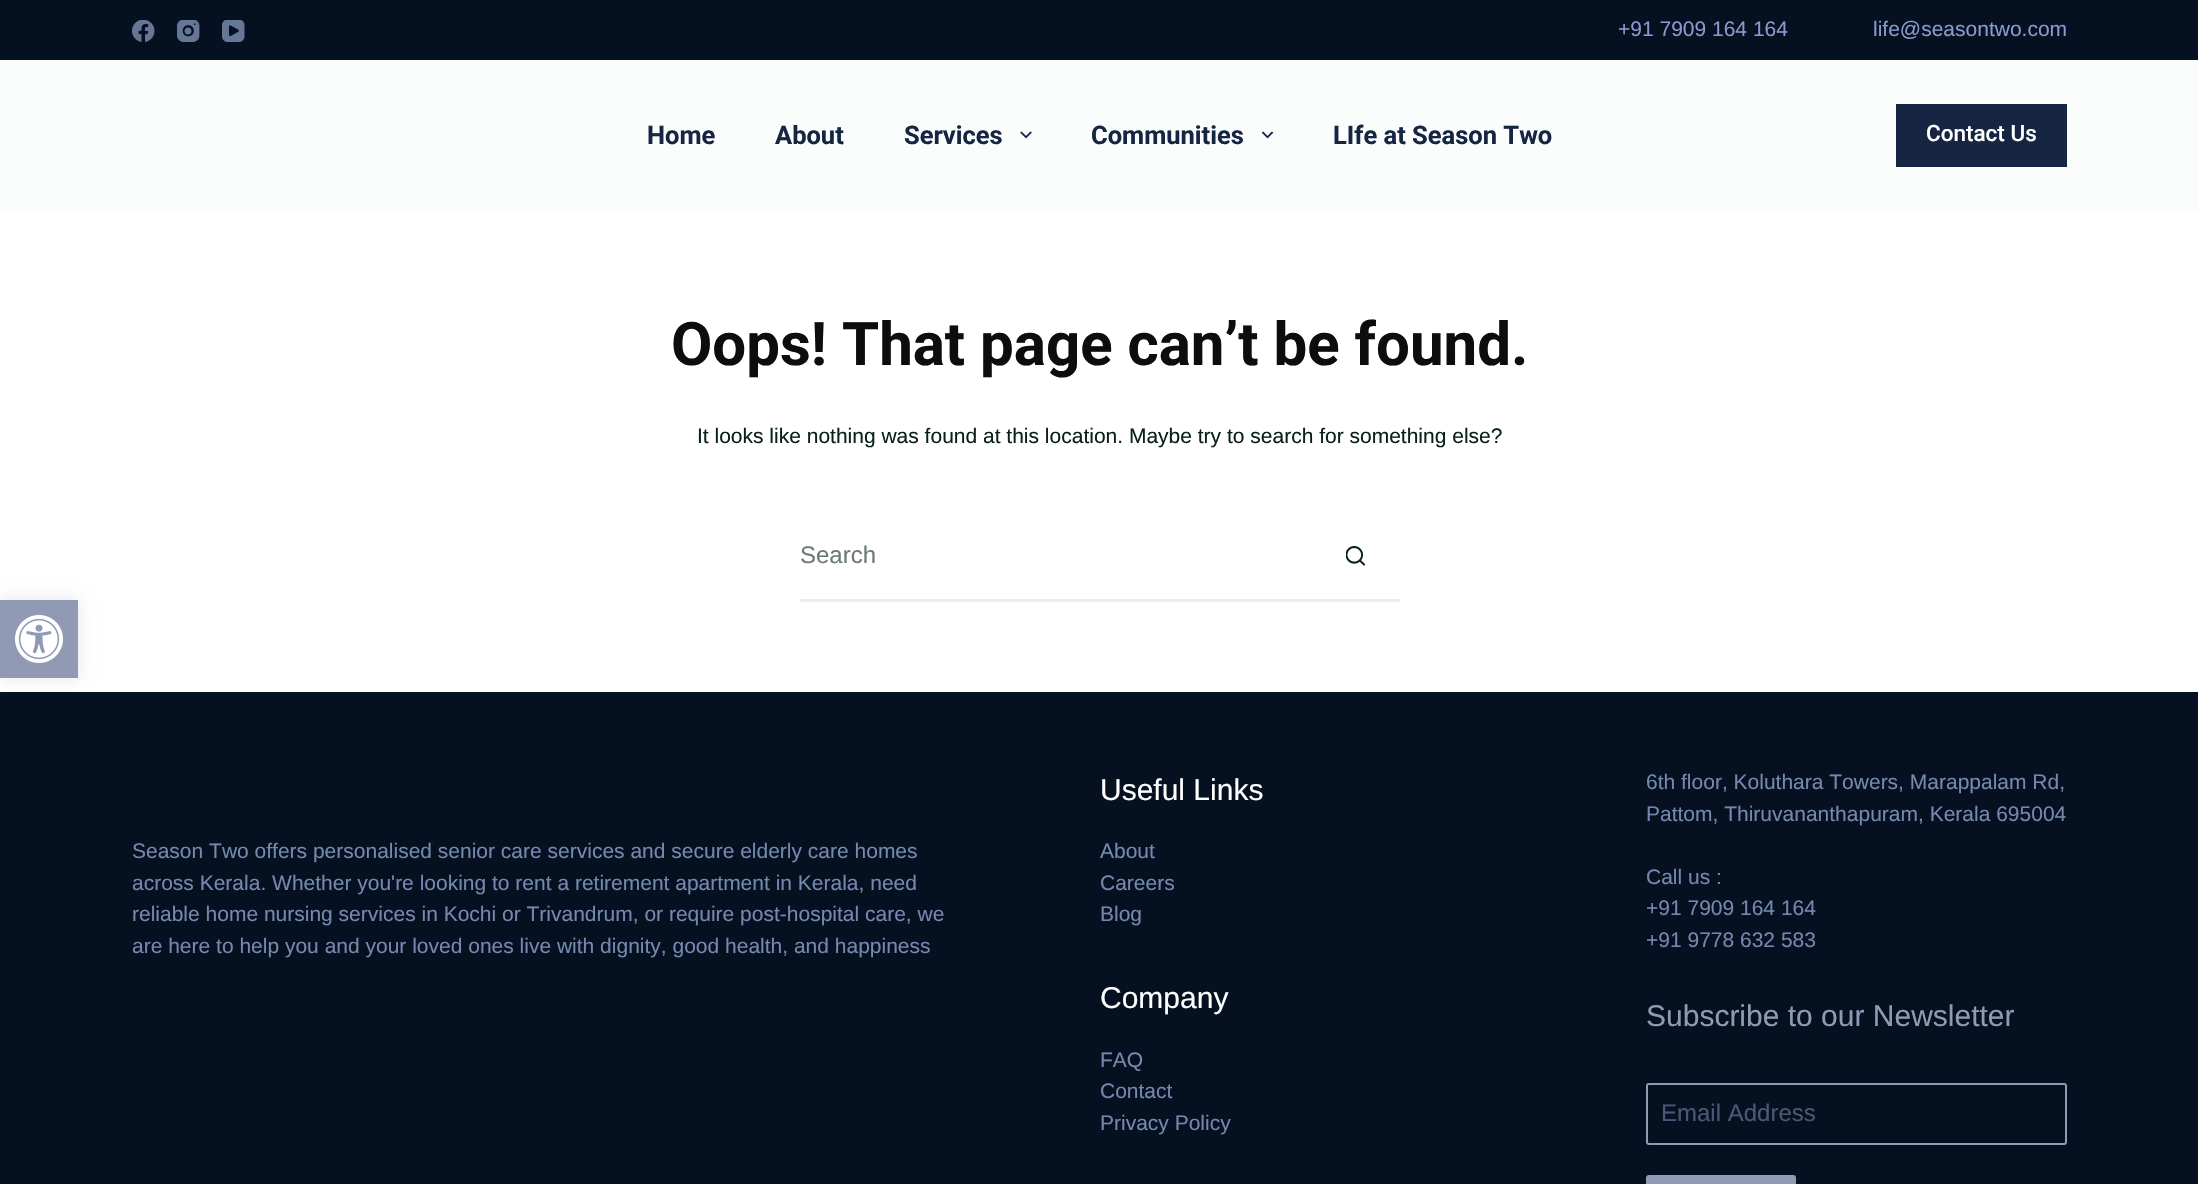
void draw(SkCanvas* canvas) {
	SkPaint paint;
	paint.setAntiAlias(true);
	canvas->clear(0xffffffff);
	paint.setColor(0xff051021);
	canvas->drawRect(SkRect::MakeXYWH(0, 692, 2198, 492), paint);
	paint.setColor(0x1a000000);
	paint.setMaskFilter(SkMaskFilter::MakeBlur(kNormal_SkBlurStyle, 7.5));
	canvas->drawRect(SkRect::MakeXYWH(0, 600, 78, 78), paint);
	paint.setMaskFilter(nullptr);
	paint.setColor(0xff919ab4);
	canvas->drawRect(SkRect::MakeXYWH(0, 600, 78, 78), paint);
	canvas->drawImageRect(SkImages::DeferredFromEncodedData(SkData::MakeFromFileName("img1.png")), SkRect::MakeXYWH(15, 615, 48, 48), SkSamplingOptions());
	paint.setColor(0xff051021);
	canvas->drawRect(SkRect::MakeXYWH(0, 0, 2198, 60), paint);
	canvas->drawImageRect(SkImages::DeferredFromEncodedData(SkData::MakeFromFileName("img2.png")), SkRect::MakeXYWH(132, 20, 23, 22), SkSamplingOptions());
	canvas->drawImageRect(SkImages::DeferredFromEncodedData(SkData::MakeFromFileName("img3.png")), SkRect::MakeXYWH(177, 20, 23, 22), SkSamplingOptions());
	canvas->drawImageRect(SkImages::DeferredFromEncodedData(SkData::MakeFromFileName("img4.png")), SkRect::MakeXYWH(222, 20, 23, 22), SkSamplingOptions());
	SkFont f1(fontMgr->matchFamilyStyle("Liberation Sans", SkFontStyle::Normal()), 21);
	f1.setSubpixel(true);
	paint.setColor(0xff899bce);
	canvas->drawString("+91 7909 164 164", 1618, 36, f1, paint);
	canvas->drawString("life@seasontwo.com", 1873, 36, f1, paint);
	paint.setColor(0xfffbfcfc);
	canvas->drawRect(SkRect::MakeXYWH(0, 60, 2198, 150), paint);
	SkFont f2(fontMgr->matchFamilyStyle("Roboto", SkFontStyle::Bold()), 25.5);
	f2.setSubpixel(true);
	paint.setColor(0xff162542);
	canvas->drawString("Home", 647, 144, f2, paint);
	canvas->drawString("About", 775, 144, f2, paint);
	canvas->drawString("Services", 904, 144, f2, paint);
	canvas->drawImageRect(SkImages::DeferredFromEncodedData(SkData::MakeFromFileName("img5.png")), SkRect::MakeXYWH(1020, 131, 12, 8), SkSamplingOptions());
	canvas->drawString("Communities", 1091, 144, f2, paint);
	canvas->drawImageRect(SkImages::DeferredFromEncodedData(SkData::MakeFromFileName("img6.png")), SkRect::MakeXYWH(1262, 131, 12, 8), SkSamplingOptions());
	canvas->drawString("LIfe at Season Two", 1333, 144, f2, paint);
	canvas->drawRect(SkRect::MakeXYWH(1896, 104, 171, 63), paint);
	SkFont f3(fontMgr->matchFamilyStyle("Roboto", SkFontStyle(500, SkFontStyle::kNormal_Width, SkFontStyle::kUpright_Slant)), 22.5);
	f3.setSubpixel(true);
	paint.setColor(0xffffffff);
	canvas->drawString("Contact Us", 1926, 141, f3, paint);
	SkFont f4(fontMgr->matchFamilyStyle("Roboto", SkFontStyle::Bold()), 60);
	f4.setSubpixel(true);
	paint.setColor(0xff0c0d0c);
	canvas->drawString("Oops! That page can’t be found.", 671, 365, f4, paint);
	paint.setColor(0xff0a2117);
	canvas->drawString("It looks like nothing was found at this location. Maybe try to search for something else?", 697, 443, f1, paint);
	paint.setColor(0xffe6f0ee);
	canvas->drawRect(SkRect::MakeXYWH(800, 599, 600, 3), paint);
	SkFont f5(fontMgr->matchFamilyStyle("Liberation Sans", SkFontStyle::Normal()), 24);
	f5.setSubpixel(true);
	paint.setColor(0xff6c7a74);
	canvas->drawString("Search", 800, 563, f5, paint);
	canvas->drawImageRect(SkImages::DeferredFromEncodedData(SkData::MakeFromFileName("img7.png")), SkRect::MakeXYWH(1346, 546, 19, 20), SkSamplingOptions());
	paint.setColor(0xff7588ae);
	canvas->drawString("Season Two offers personalised senior care services and secure elderly care homes", 132, 858, f1, paint);
	canvas->drawString("across Kerala. Whether you're looking to rent a retirement apartment in Kerala, need", 132, 890, f1, paint);
	canvas->drawString("reliable home nursing services in Kochi or Trivandrum, or require post-hospital care, we", 132, 921, f1, paint);
	canvas->drawString("are here to help you and your loved ones live with dignity, good health, and happiness", 132, 953, f1, paint);
	SkFont f6(fontMgr->matchFamilyStyle("Liberation Sans", SkFontStyle::Normal()), 30);
	f6.setSubpixel(true);
	paint.setColor(0xffffffff);
	canvas->drawString("Useful Links", 1100, 800, f6, paint);
	paint.setColor(0xff7588ae);
	canvas->drawString("About", 1100, 858, f1, paint);
	canvas->drawString("Careers", 1100, 890, f1, paint);
	canvas->drawString("Blog", 1100, 921, f1, paint);
	paint.setColor(0xffffffff);
	canvas->drawString("Company", 1100, 1008, f6, paint);
	paint.setColor(0xff7588ae);
	canvas->drawString("FAQ", 1100, 1067, f1, paint);
	canvas->drawString("Contact", 1100, 1098, f1, paint);
	canvas->drawString("Privacy Policy", 1100, 1130, f1, paint);
	canvas->drawString("6th floor, Koluthara Towers, Marappalam Rd,", 1646, 789, f1, paint);
	canvas->drawString("Pattom, Thiruvananthapuram, Kerala 695004", 1646, 821, f1, paint);
	canvas->drawString("Call us :", 1646, 884, f1, paint);
	canvas->drawString("+91 7909 164 164", 1646, 915, f1, paint);
	canvas->drawString("+91 9778 632 583", 1646, 947, f1, paint);
	paint.setColor(0xff919ab4);
	canvas->drawString("Subscribe to our Newsletter", 1646, 1026, f6, paint);
	paint.setStroke(true);
	paint.setStrokeWidth(2);
	canvas->drawRoundRect(SkRect::MakeXYWH(1647, 1084, 419, 60), 2, 2, paint);
	paint.setStroke(false);
	paint.setColor(0xff485876);
	canvas->drawString("Email Address", 1661, 1121, f5, paint);
	paint.setColor(0xff919ab4);
	canvas->drawRoundRect(SkRect::MakeXYWH(1646, 1175, 150, 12), 3, 3, paint);
}
